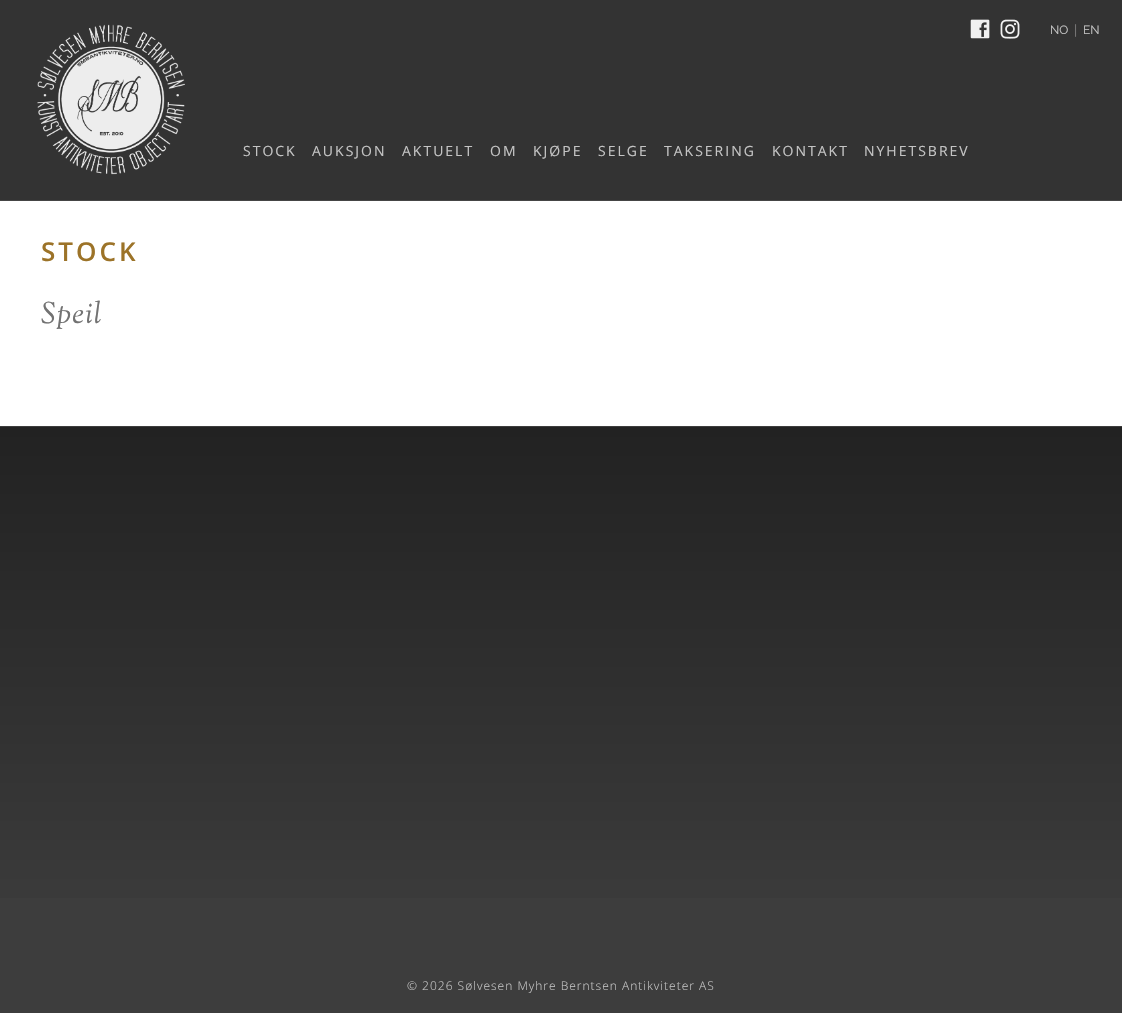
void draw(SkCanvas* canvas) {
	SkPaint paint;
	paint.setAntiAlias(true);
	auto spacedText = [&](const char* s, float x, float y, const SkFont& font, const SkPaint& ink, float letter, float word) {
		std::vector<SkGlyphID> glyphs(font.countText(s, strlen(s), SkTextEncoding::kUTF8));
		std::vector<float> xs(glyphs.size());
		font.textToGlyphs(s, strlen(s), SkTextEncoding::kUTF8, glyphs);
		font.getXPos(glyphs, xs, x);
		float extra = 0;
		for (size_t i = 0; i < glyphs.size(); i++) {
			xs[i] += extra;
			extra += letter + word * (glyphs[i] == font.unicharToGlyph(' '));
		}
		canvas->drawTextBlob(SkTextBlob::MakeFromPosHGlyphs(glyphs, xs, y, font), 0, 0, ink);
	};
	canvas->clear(0xff3d3d3d);
	paint.setColor(0xff333333);
	canvas->drawRect(SkRect::MakeXYWH(0, 0, 1122, 200), paint);
	paint.setColor(0xff454545);
	canvas->drawRect(SkRect::MakeXYWH(0, 200, 1122, 1), paint);
	canvas->drawImageRect(SkImages::DeferredFromEncodedData(SkData::MakeFromFileName("img1.png")), SkRect::MakeXYWH(970, 19, 20, 20), SkSamplingOptions());
	canvas->drawImageRect(SkImages::DeferredFromEncodedData(SkData::MakeFromFileName("img2.png")), SkRect::MakeXYWH(1000, 19, 20, 20), SkSamplingOptions());
	SkFont f1(fontMgr->matchFamilyStyle("Raleway", SkFontStyle::Normal()), 12);
	f1.setSubpixel(true);
	paint.setColor(0xffc4c4c4);
	canvas->drawString("NO", 1050, 34, f1, paint);
	SkFont f2(fontMgr->matchFamilyStyle("Raleway", SkFontStyle::Normal()), 14);
	f2.setSubpixel(true);
	paint.setColor(0xff818080);
	canvas->drawString("|", 1074, 35, f2, paint);
	paint.setColor(0xffc4c4c4);
	canvas->drawString("EN", 1083, 34, f1, paint);
	canvas->drawImageRect(SkImages::DeferredFromEncodedData(SkData::MakeFromFileName("img3.png")), SkRect::MakeXYWH(37, 24, 148, 151), SkSamplingOptions());
	SkFont f3(fontMgr->matchFamilyStyle("Open Sans", SkFontStyle::Normal()), 14);
	f3.setSubpixel(true);
	spacedText("STOCK", 243, 156, f3, paint, 2, 0);
	spacedText("AUKSJON", 312, 156, f3, paint, 2, 0);
	spacedText("AKTUELT", 402, 156, f3, paint, 2, 0);
	spacedText("OM", 490, 156, f3, paint, 2, 0);
	spacedText("KJØPE", 533, 156, f3, paint, 2, 0);
	spacedText("SELGE", 598, 156, f3, paint, 2, 0);
	spacedText("TAKSERING", 664, 156, f3, paint, 2, 0);
	spacedText("KONTAKT", 772, 156, f3, paint, 2, 0);
	spacedText("NYHETSBREV", 864, 156, f3, paint, 2, 0);
	paint.setColor(0xffffffff);
	canvas->drawRect(SkRect::MakeXYWH(0, 201, 1122, 225), paint);
	SkFont f4(fontMgr->matchFamilyStyle("Open Sans", SkFontStyle(600, SkFontStyle::kNormal_Width, SkFontStyle::kUpright_Slant)), 26);
	f4.setSubpixel(true);
	paint.setColor(0xff9c7328);
	spacedText("STOCK", 41, 261, f4, paint, 3, 0);
	SkFont f5(fontMgr->matchFamilyStyle("Sorts Mill Goudy", SkFontStyle::Italic()), 30);
	f5.setSubpixel(true);
	paint.setColor(0xff727272);
	spacedText("Speil", 41, 323, f5, paint, 1, 0);
	{
		const SkColor colors[] = {0xff222222, 0xff3c3c3c};
		const float stops[] = {0, 1};
		const SkPoint ends[] = {{561, 427}, {561, 927}};
		paint.setShader(SkGradientShader::MakeLinear(ends, colors, stops, 2, SkTileMode::kClamp));
		paint.setAlpha(255);
	}
	canvas->drawRect(SkRect::MakeXYWH(0, 427, 1122, 471), paint);
	SkFont f6(fontMgr->matchFamilyStyle("Open Sans", SkFontStyle(300, SkFontStyle::kNormal_Width, SkFontStyle::kUpright_Slant)), 12);
	f6.setSubpixel(true);
	paint.setShader(nullptr);
	paint.setColor(0xffc4c4c4);
	spacedText("© 2026 Sølvesen Myhre Berntsen Antikviteter AS", 407, 990, f6, paint, 1, 0);
}
